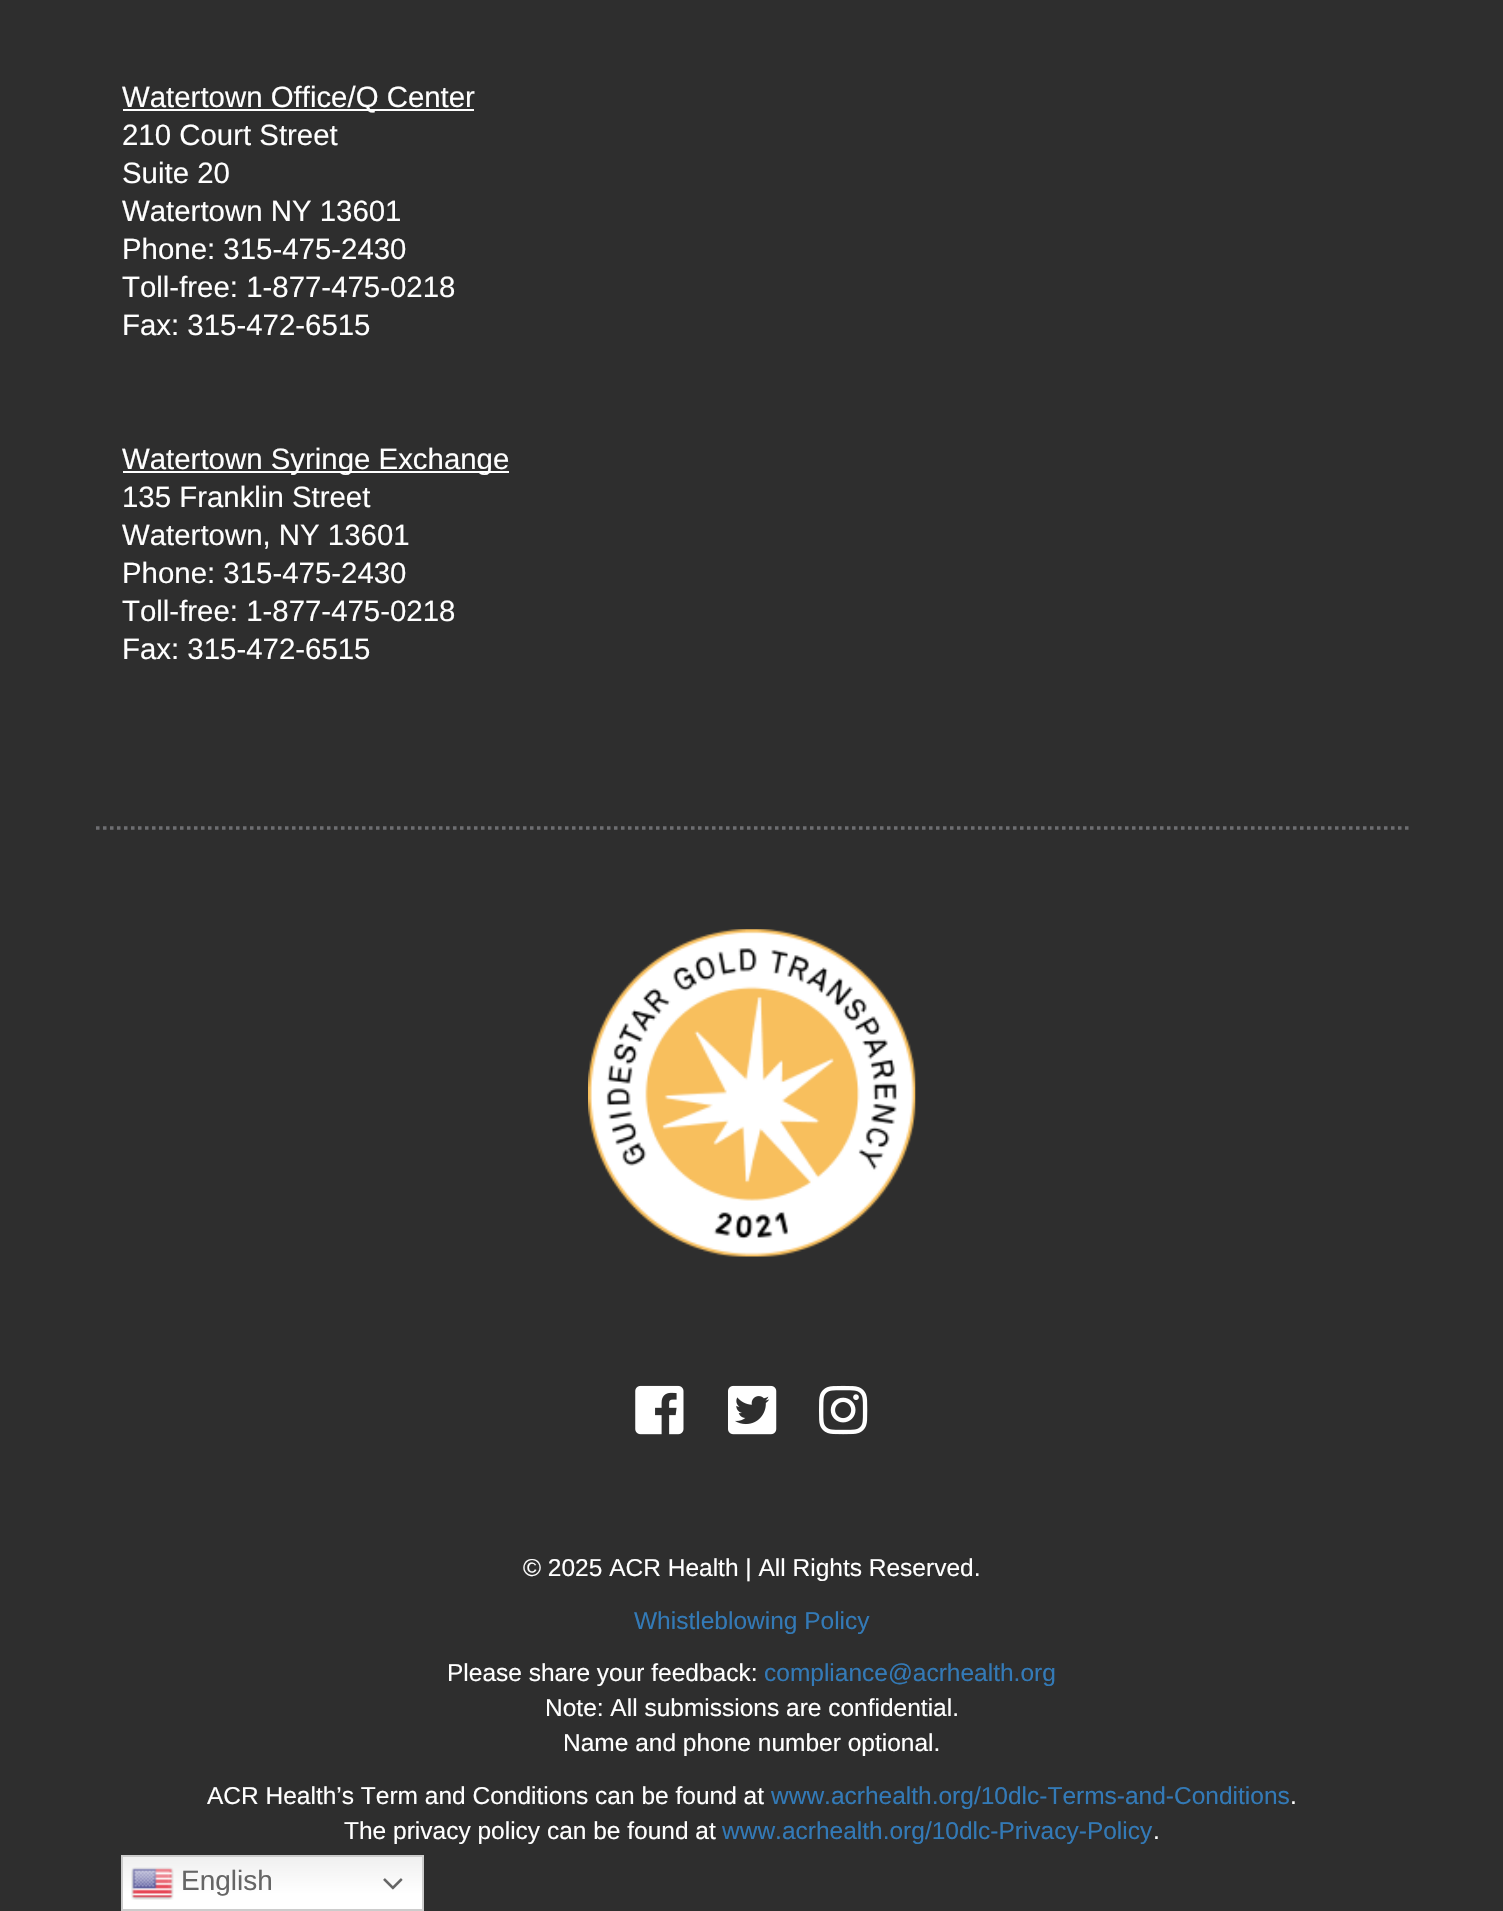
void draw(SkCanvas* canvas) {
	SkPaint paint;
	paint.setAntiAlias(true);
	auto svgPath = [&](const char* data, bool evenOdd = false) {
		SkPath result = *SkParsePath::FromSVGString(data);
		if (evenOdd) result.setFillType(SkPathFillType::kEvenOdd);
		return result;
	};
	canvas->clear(0xff2e2e2e);
	paint.setColor(0xffffffff);
	canvas->drawRect(SkRect::MakeXYWH(123, 109, 351, 2), paint);
	SkFont f1(fontMgr->matchFamilyStyle("Liberation Sans", SkFontStyle::Normal()), 29.4);
	f1.setSubpixel(true);
	canvas->drawString("Watertown Office/Q Center", 122, 107, f1, paint);
	canvas->drawString("210 Court Street", 122, 145, f1, paint);
	canvas->drawString("Suite 20", 122, 183, f1, paint);
	canvas->drawString("Watertown NY 13601", 122, 221, f1, paint);
	canvas->drawString("Phone: 315-475-2430", 122, 259, f1, paint);
	canvas->drawString("Toll-free: 1-877-475-0218", 122, 297, f1, paint);
	canvas->drawString("Fax: 315-472-6515", 122, 335, f1, paint);
	canvas->drawRect(SkRect::MakeXYWH(123, 471, 386, 2), paint);
	canvas->drawString("Watertown Syringe Exchange", 122, 469, f1, paint);
	canvas->drawString("135 Franklin Street", 122, 507, f1, paint);
	canvas->drawString("Watertown, NY 13601", 122, 545, f1, paint);
	canvas->drawString("Phone: 315-475-2430", 122, 583, f1, paint);
	canvas->drawString("Toll-free: 1-877-475-0218", 122, 621, f1, paint);
	canvas->drawString("Fax: 315-472-6515", 122, 659, f1, paint);
	paint.setStroke(true);
	paint.setStrokeWidth(3.5);
	paint.setColor(0xff6d6e71);
	paint.setPathEffect(SkDashPathEffect::Make({{3.5f, 3.5f}}, 0));
	canvas->drawPath(svgPath("M96 828H1409"), paint);
	paint.setPathEffect(nullptr);
	canvas->drawImageRect(SkImages::DeferredFromEncodedData(SkData::MakeFromFileName("img1.png")), SkRect::MakeXYWH(588, 929, 328, 328), SkSamplingOptions());
	canvas->drawImageRect(SkImages::DeferredFromEncodedData(SkData::MakeFromFileName("img2.png")), SkRect::MakeXYWH(635, 1385, 49, 50), SkSamplingOptions());
	canvas->drawImageRect(SkImages::DeferredFromEncodedData(SkData::MakeFromFileName("img3.png")), SkRect::MakeXYWH(728, 1385, 49, 50), SkSamplingOptions());
	canvas->drawImageRect(SkImages::DeferredFromEncodedData(SkData::MakeFromFileName("img4.png")), SkRect::MakeXYWH(819, 1385, 49, 50), SkSamplingOptions());
	SkFont f2(fontMgr->matchFamilyStyle("Liberation Sans", SkFontStyle::Normal()), 24.5);
	f2.setSubpixel(true);
	paint.setStroke(false);
	paint.setColor(0xffffffff);
	canvas->drawString("© 2025 ACR Health | All Rights Reserved.", 523, 1576, f2, paint);
	paint.setColor(0xff337ab7);
	canvas->drawString("Whistleblowing Policy", 634, 1629, f2, paint);
	paint.setColor(0xffffffff);
	canvas->drawString("Please share your feedback:", 447, 1681, f2, paint);
	paint.setColor(0xff337ab7);
	canvas->drawString("compliance@acrhealth.org", 764, 1681, f2, paint);
	paint.setColor(0xffffffff);
	canvas->drawString("Note: All submissions are confidential.", 545, 1716, f2, paint);
	canvas->drawString("Name and phone number optional.", 563, 1751, f2, paint);
	canvas->drawString("ACR Health’s Term and Conditions can be found at", 207, 1804, f2, paint);
	paint.setColor(0xff337ab7);
	canvas->drawString("www.acrhealth.org/10dlc-Terms-and-Conditions", 771, 1804, f2, paint);
	paint.setColor(0xffffffff);
	canvas->drawString(".", 1290, 1804, f2, paint);
	canvas->drawString("The privacy policy can be found at", 344, 1839, f2, paint);
	paint.setColor(0xff337ab7);
	canvas->drawString("www.acrhealth.org/10dlc-Privacy-Policy", 722, 1839, f2, paint);
	paint.setColor(0xffffffff);
	canvas->drawString(".", 1153, 1839, f2, paint);
	{
		const SkColor colors[] = {0xffefefef, 0xffffffff};
		const float stops[] = {0, 0.7};
		const SkPoint ends[] = {{272, 1855}, {272, 1911}};
		paint.setShader(SkGradientShader::MakeLinear(ends, colors, stops, 2, SkTileMode::kClamp));
		paint.setAlpha(255);
	}
	canvas->drawRect(SkRect::MakeXYWH(123, 1857, 299, 52), paint);
	paint.setStroke(true);
	paint.setStrokeWidth(2);
	paint.setShader(nullptr);
	paint.setColor(0xffcccccc);
	canvas->drawRect(SkRect::MakeXYWH(122, 1856, 301, 54), paint);
	canvas->drawImageRect(SkImages::DeferredFromEncodedData(SkData::MakeFromFileName("img5.png")), SkRect::MakeXYWH(131, 1867, 43, 33), SkSamplingOptions());
	SkFont f3(fontMgr->matchFamilyStyle("Liberation Sans", SkFontStyle::Normal()), 28);
	f3.setSubpixel(true);
	paint.setStroke(false);
	paint.setColor(0xff666666);
	canvas->drawString("English", 181, 1890, f3, paint);
	canvas->drawImageRect(SkImages::DeferredFromEncodedData(SkData::MakeFromFileName("img6.png")), SkRect::MakeXYWH(383, 1878, 20, 12), SkSamplingOptions());
}
